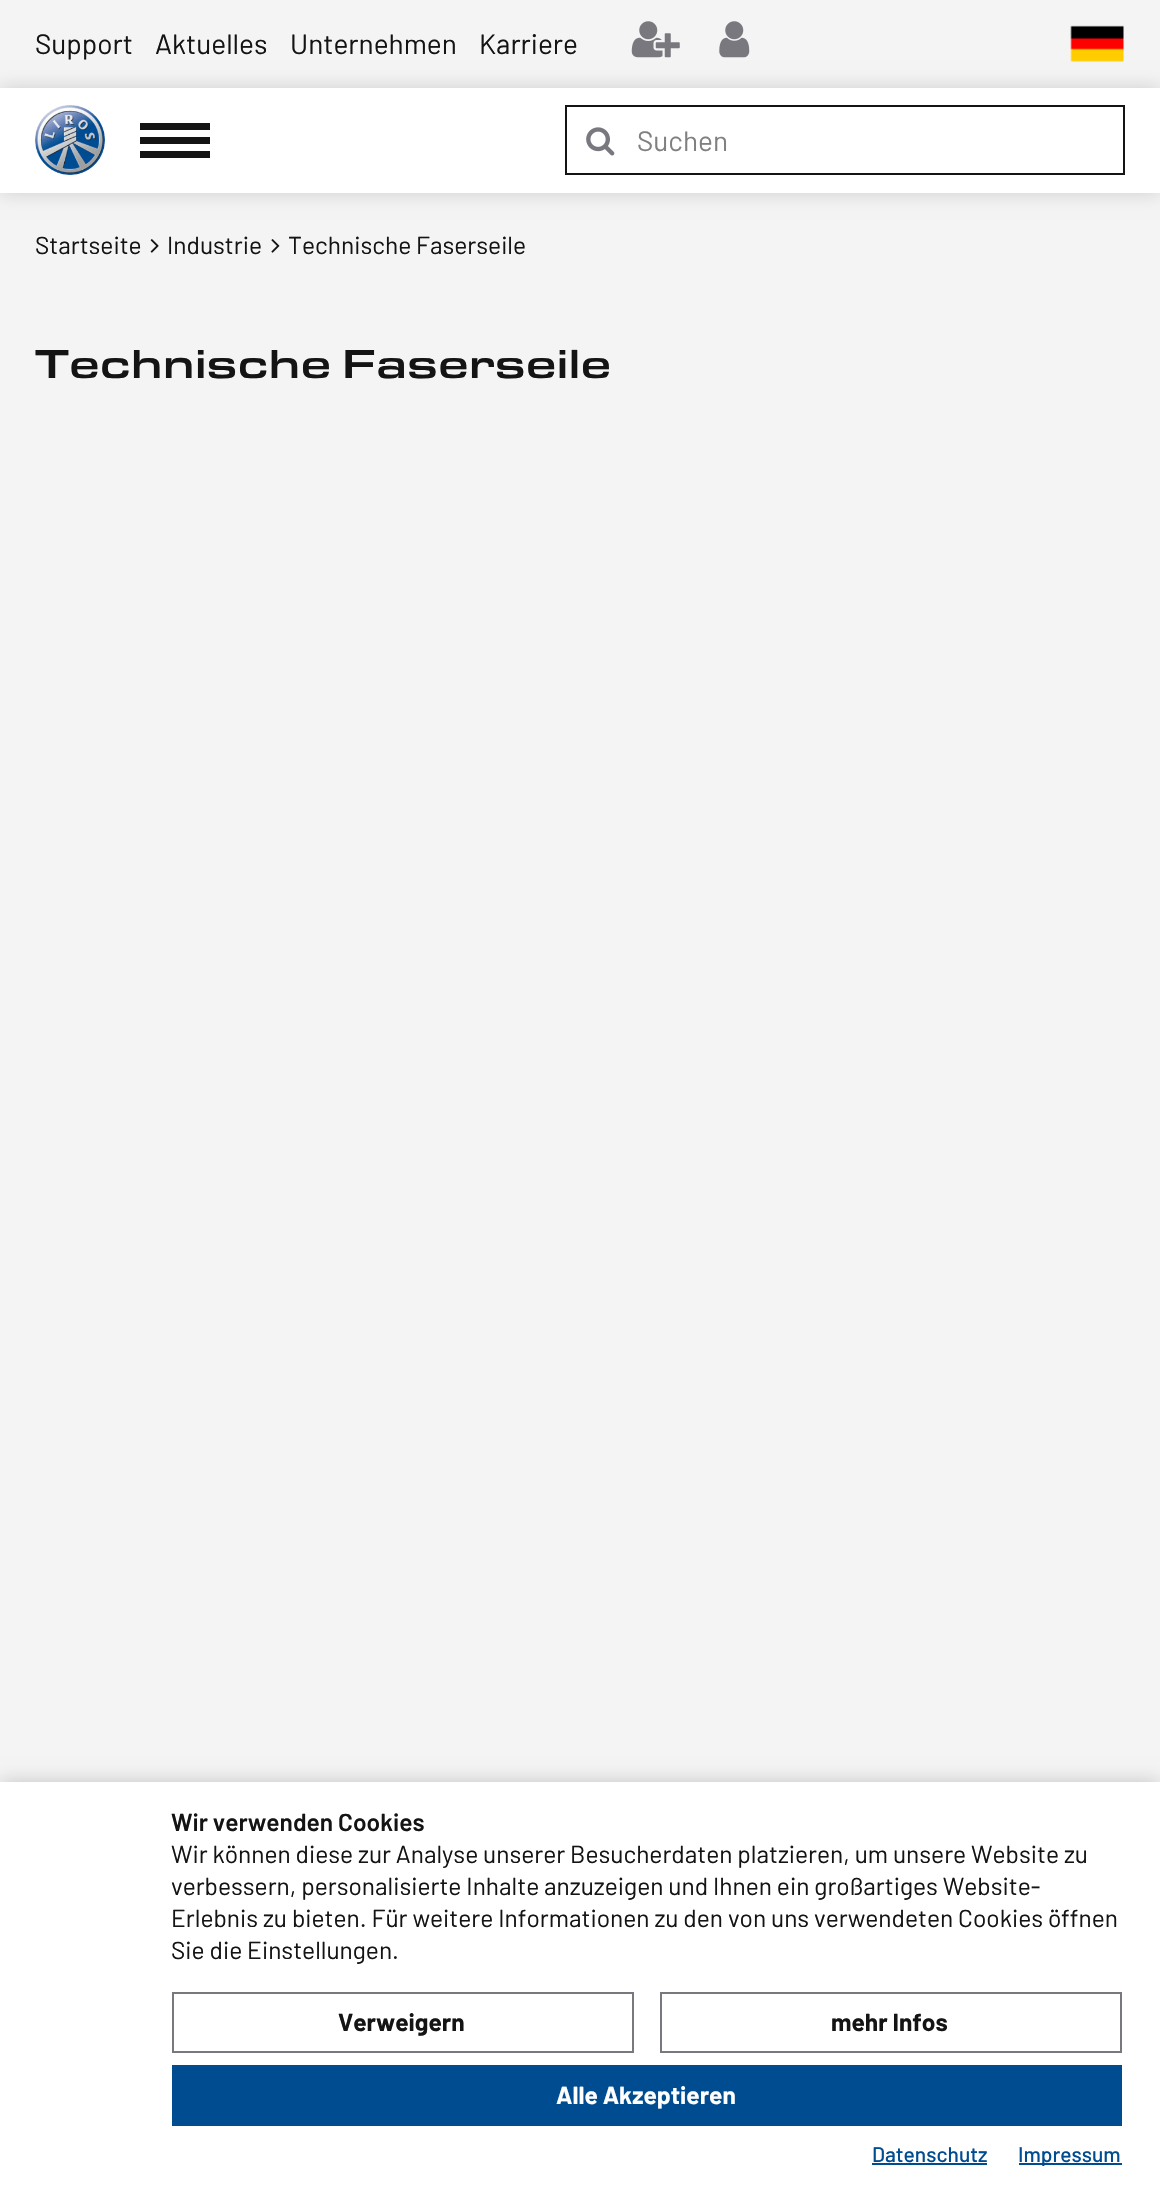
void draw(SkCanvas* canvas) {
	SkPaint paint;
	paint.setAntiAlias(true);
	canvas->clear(0xfff4f4f4);
	SkFont f1(fontMgr->matchFamilyStyle("Barlow", SkFontStyle::Normal()), 28);
	f1.setSubpixel(true);
	paint.setColor(0xff141414);
	canvas->drawString("Support", 35, 54, f1, paint);
	canvas->drawString("Aktuelles", 155, 54, f1, paint);
	canvas->drawString("Unternehmen", 290, 54, f1, paint);
	canvas->drawString("Karriere", 479, 54, f1, paint);
	canvas->drawImageRect(SkImages::DeferredFromEncodedData(SkData::MakeFromFileName("img1.png")), SkRect::MakeXYWH(631, 21, 49, 37), SkSamplingOptions());
	canvas->drawImageRect(SkImages::DeferredFromEncodedData(SkData::MakeFromFileName("img2.png")), SkRect::MakeXYWH(719, 21, 31, 37), SkSamplingOptions());
	paint.setColor(0x29000000);
	paint.setMaskFilter(SkMaskFilter::MakeBlur(kNormal_SkBlurStyle, 9));
	canvas->drawRect(SkRect::MakeXYWH(0, 88, 1160, 105), paint);
	paint.setMaskFilter(nullptr);
	canvas->drawImageRect(SkImages::DeferredFromEncodedData(SkData::MakeFromFileName("img3.png")), SkRect::MakeXYWH(1070, 25, 54, 37), SkSamplingOptions());
	paint.setColor(0xffffffff);
	canvas->drawRect(SkRect::MakeXYWH(0, 88, 1160, 105), paint);
	canvas->drawImageRect(SkImages::DeferredFromEncodedData(SkData::MakeFromFileName("img4.png")), SkRect::MakeXYWH(35, 105, 70, 70), SkSamplingOptions());
	paint.setColor(0xff141414);
	canvas->drawRect(SkRect::MakeXYWH(140, 123, 70, 7), paint);
	canvas->drawRect(SkRect::MakeXYWH(140, 137, 70, 7), paint);
	canvas->drawRect(SkRect::MakeXYWH(140, 151, 70, 7), paint);
	paint.setStroke(true);
	paint.setStrokeWidth(2);
	canvas->drawRect(SkRect::MakeXYWH(566, 106, 558, 68), paint);
	canvas->drawImageRect(SkImages::DeferredFromEncodedData(SkData::MakeFromFileName("img5.png")), SkRect::MakeXYWH(586, 127, 29, 29), SkSamplingOptions());
	paint.setStroke(false);
	paint.setColor(0xff808080);
	canvas->drawString("Suchen", 637, 151, f1, paint);
	SkFont f2(fontMgr->matchFamilyStyle("Barlow", SkFontStyle::Normal()), 24.5);
	f2.setSubpixel(true);
	paint.setColor(0xff141414);
	canvas->drawString("Startseite", 35, 254, f2, paint);
	canvas->drawImageRect(SkImages::DeferredFromEncodedData(SkData::MakeFromFileName("img6.png")), SkRect::MakeXYWH(150, 239, 9, 14), SkSamplingOptions());
	canvas->drawString("Industrie", 167, 254, f2, paint);
	canvas->drawImageRect(SkImages::DeferredFromEncodedData(SkData::MakeFromFileName("img7.png")), SkRect::MakeXYWH(271, 239, 9, 14), SkSamplingOptions());
	canvas->drawString("Technische Faserseile", 288, 254, f2, paint);
	SkFont f3(fontMgr->matchFamilyStyle("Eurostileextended", SkFontStyle::Normal()), 42);
	f3.setSubpixel(true);
	canvas->drawString("Technische Faserseile", 35, 378, f3, paint);
	paint.setColor(0x33000000);
	paint.setMaskFilter(SkMaskFilter::MakeBlur(kNormal_SkBlurStyle, 9));
	canvas->drawRect(SkRect::MakeXYWH(0, 1782, 1160, 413), paint);
	paint.setMaskFilter(nullptr);
	paint.setColor(0xffffffff);
	canvas->drawRect(SkRect::MakeXYWH(0, 1782, 1160, 411), paint);
	SkFont f4(fontMgr->matchFamilyStyle("Barlow", SkFontStyle(600, SkFontStyle::kNormal_Width, SkFontStyle::kUpright_Slant)), 24.5);
	f4.setSubpixel(true);
	paint.setColor(0xff141414);
	canvas->drawString("Wir verwenden Cookies", 171, 1831, f4, paint);
	canvas->drawString("Wir können diese zur Analyse unserer Besucherdaten platzieren, um unsere Website zu", 171, 1863, f2, paint);
	canvas->drawString("verbessern, personalisierte Inhalte anzuzeigen und Ihnen ein großartiges Website-", 171, 1895, f2, paint);
	canvas->drawString("Erlebnis zu bieten. Für weitere Informationen zu den von uns verwendeten Cookies öffnen", 171, 1927, f2, paint);
	canvas->drawString("Sie die Einstellungen.", 171, 1959, f2, paint);
	paint.setStroke(true);
	paint.setColor(0xff78787e);
	canvas->drawRect(SkRect::MakeXYWH(173, 1993, 460, 59), paint);
	SkFont f5(fontMgr->matchFamilyStyle("Barlow", SkFontStyle::Bold()), 24.5);
	f5.setSubpixel(true);
	paint.setStroke(false);
	paint.setColor(0xff141414);
	canvas->drawString("Verweigern", 338, 2031, f5, paint);
	paint.setStroke(true);
	paint.setColor(0xff78787e);
	canvas->drawRect(SkRect::MakeXYWH(661, 1993, 460, 59), paint);
	paint.setStroke(false);
	paint.setColor(0xff141414);
	canvas->drawString("mehr Infos", 831, 2031, f5, paint);
	paint.setColor(0xff004c91);
	canvas->drawRect(SkRect::MakeXYWH(172, 2065, 950, 61), paint);
	paint.setColor(0xffffffff);
	canvas->drawString("Alle Akzeptieren", 556, 2104, f5, paint);
	SkFont f6(fontMgr->matchFamilyStyle("Barlow", SkFontStyle(500, SkFontStyle::kNormal_Width, SkFontStyle::kUpright_Slant)), 21);
	f6.setSubpixel(true);
	paint.setColor(0xff004c91);
	canvas->drawString("Datenschutz", 872, 2162, f6, paint);
	canvas->drawRect(SkRect::MakeXYWH(872, 2163, 115, 2), paint);
	canvas->drawRect(SkRect::MakeXYWH(1019, 2163, 103, 2), paint);
	canvas->drawString("Impressum", 1018, 2162, f6, paint);
}
